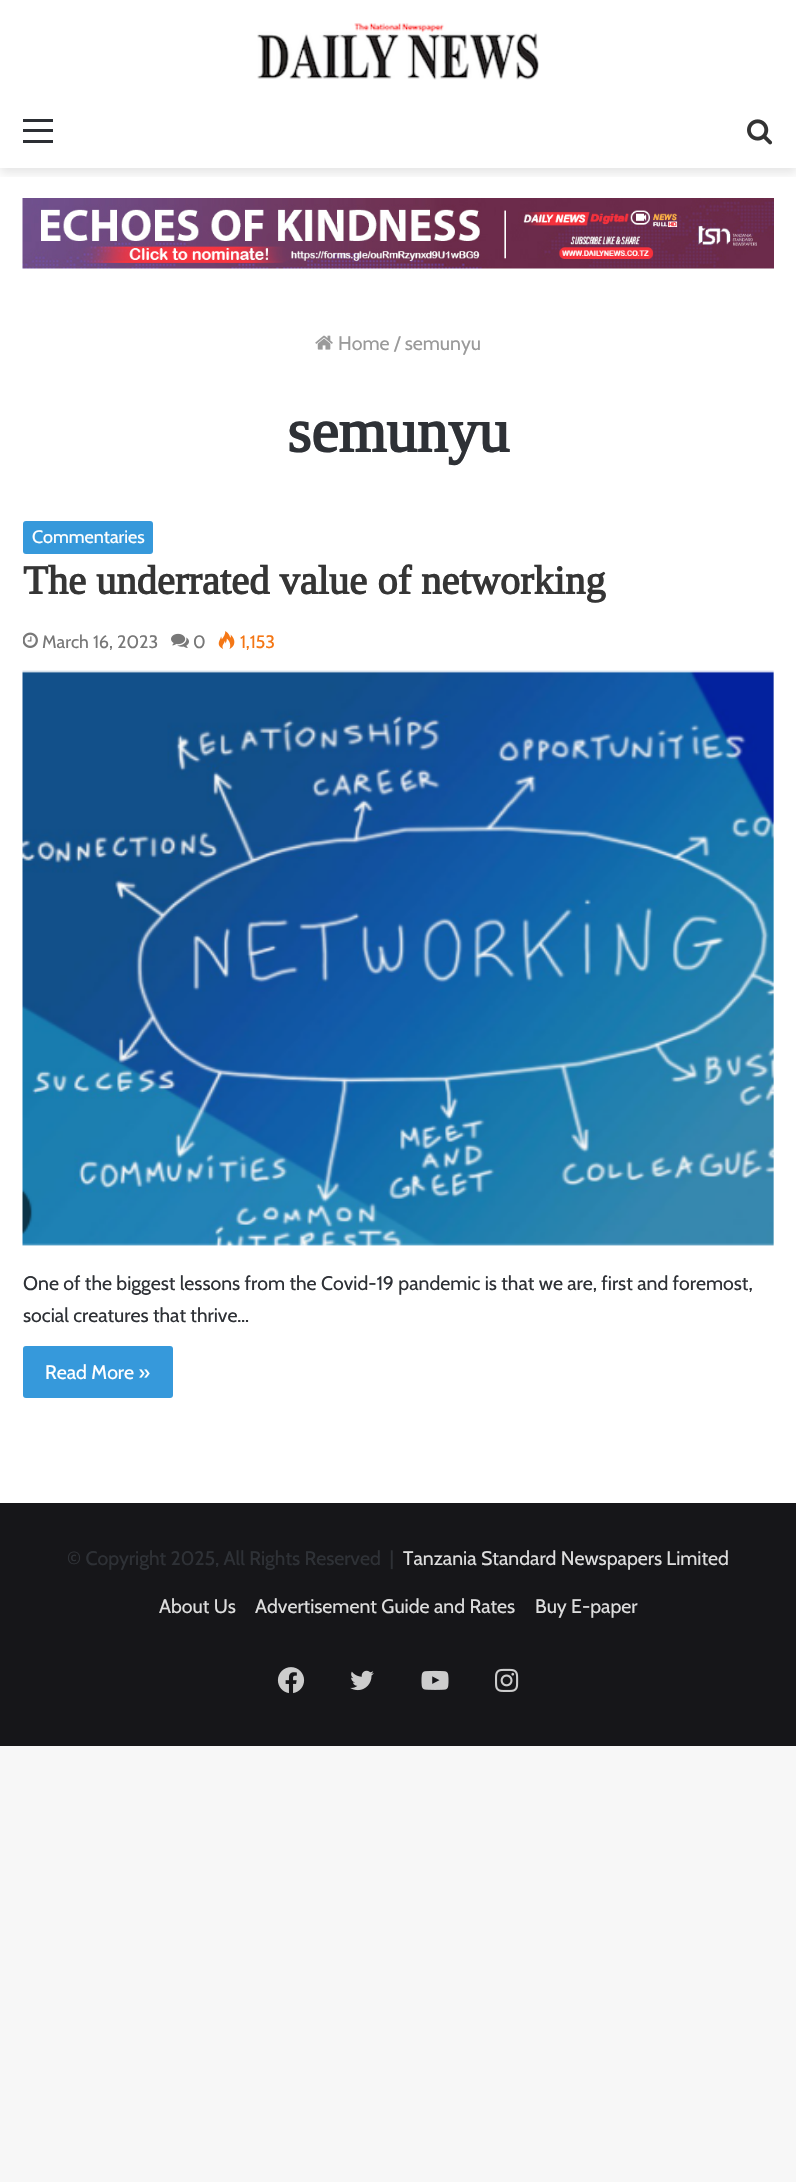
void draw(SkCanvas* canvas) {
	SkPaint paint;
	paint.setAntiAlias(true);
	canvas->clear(0xfff7f7f7);
	paint.setColor(0xffffffff);
	canvas->drawRect(SkRect::MakeXYWH(0, 0, 796, 1503), paint);
	canvas->save();
	canvas->clipRect(SkRect::MakeXYWH(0, 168, 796, 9));
	paint.setColor(0x1a000000);
	paint.setMaskFilter(SkMaskFilter::MakeBlur(kNormal_SkBlurStyle, 5));
	canvas->drawRect(SkRect::MakeXYWH(0, 5, 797, 168), paint);
	paint.setMaskFilter(nullptr);
	canvas->restore();
	canvas->drawImageRect(SkImages::DeferredFromEncodedData(SkData::MakeFromFileName("img1.png")), SkRect::MakeXYWH(257, 23, 282, 57), SkSamplingOptions());
	paint.setColor(0xff2c2f34);
	canvas->drawRect(SkRect::MakeXYWH(23, 129, 30, 3), paint);
	canvas->drawRect(SkRect::MakeXYWH(23, 119, 30, 3), paint);
	canvas->drawRect(SkRect::MakeXYWH(23, 140, 30, 3), paint);
	canvas->drawImageRect(SkImages::DeferredFromEncodedData(SkData::MakeFromFileName("img2.png")), SkRect::MakeXYWH(747, 119, 26, 26), SkSamplingOptions());
	canvas->drawImageRect(SkImages::DeferredFromEncodedData(SkData::MakeFromFileName("img3.png")), SkRect::MakeXYWH(22, 198, 752, 71), SkSamplingOptions());
	canvas->drawImageRect(SkImages::DeferredFromEncodedData(SkData::MakeFromFileName("img4.png")), SkRect::MakeXYWH(315, 335, 18, 15), SkSamplingOptions());
	SkFont f1(fontMgr->matchFamilyStyle("Cabin", SkFontStyle::Normal()), 19.5);
	f1.setSubpixel(true);
	paint.setColor(0xff9a9a9a);
	canvas->drawString("Home / semunyu", 338, 350, f1, paint);
	SkFont f2(fontMgr->matchFamilyStyle("Tinos", SkFontStyle::Bold()), 61.5);
	f2.setSubpixel(true);
	paint.setColor(0xff2e3136);
	canvas->drawString("semunyu", 287, 452, f2, paint);
	paint.setColor(0xff3699db);
	canvas->drawRoundRect(SkRect::MakeXYWH(23, 521, 130, 33), 3, 3, paint);
	SkFont f3(fontMgr->matchFamilyStyle("Cabin", SkFontStyle::Normal()), 18);
	f3.setSubpixel(true);
	paint.setColor(0xffffffff);
	canvas->drawString("Commentaries", 32, 543, f3, paint);
	SkFont f4(fontMgr->matchFamilyStyle("Tinos", SkFontStyle::Bold()), 40.5);
	f4.setSubpixel(true);
	paint.setColor(0xff353535);
	canvas->drawString("The underrated value of networking", 23, 594, f4, paint);
	canvas->drawImageRect(SkImages::DeferredFromEncodedData(SkData::MakeFromFileName("img5.png")), SkRect::MakeXYWH(23, 632, 15, 16), SkSamplingOptions());
	paint.setColor(0xff777777);
	canvas->drawString("March 16, 2023", 42, 648, f3, paint);
	canvas->drawImageRect(SkImages::DeferredFromEncodedData(SkData::MakeFromFileName("img6.png")), SkRect::MakeXYWH(171, 633, 18, 15), SkSamplingOptions());
	canvas->drawString("0", 193, 648, f3, paint);
	canvas->drawImageRect(SkImages::DeferredFromEncodedData(SkData::MakeFromFileName("img7.png")), SkRect::MakeXYWH(218, 631, 17, 18), SkSamplingOptions());
	paint.setColor(0xfff47614);
	canvas->drawString("1,153", 240, 648, f3, paint);
	canvas->drawImageRect(SkImages::DeferredFromEncodedData(SkData::MakeFromFileName("img8.png")), SkRect::MakeXYWH(22, 670, 752, 576), SkSamplingOptions());
	paint.setColor(0xff2e3136);
	canvas->drawString("One of the biggest lessons from the Covid-19 pandemic is that we are, first and foremost,", 23, 1290, f1, paint);
	canvas->drawString("social creatures that thrive…", 23, 1322, f1, paint);
	paint.setColor(0xff3699db);
	canvas->drawRoundRect(SkRect::MakeXYWH(23, 1346, 150, 52), 3, 3, paint);
	paint.setColor(0xffffffff);
	canvas->drawString("Read More »", 45, 1379, f1, paint);
	paint.setColor(0xff161619);
	canvas->drawRect(SkRect::MakeXYWH(0, 1503, 796, 243), paint);
	paint.setColor(0xff2e3136);
	canvas->drawString("© Copyright 2025, All Rights Reserved  |", 67, 1565, f1, paint);
	paint.setColor(0xffdddddd);
	canvas->drawString("Tanzania Standard Newspapers Limited", 403, 1565, f1, paint);
	canvas->drawString("About Us", 159, 1613, f1, paint);
	canvas->drawString("Advertisement Guide and Rates", 255, 1613, f1, paint);
	canvas->drawString("Buy E-paper", 535, 1613, f1, paint);
	canvas->drawImageRect(SkImages::DeferredFromEncodedData(SkData::MakeFromFileName("img9.png")), SkRect::MakeXYWH(277, 1667, 28, 27), SkSamplingOptions());
	canvas->drawImageRect(SkImages::DeferredFromEncodedData(SkData::MakeFromFileName("img10.png")), SkRect::MakeXYWH(350, 1670, 24, 21), SkSamplingOptions());
	canvas->drawImageRect(SkImages::DeferredFromEncodedData(SkData::MakeFromFileName("img11.png")), SkRect::MakeXYWH(421, 1670, 28, 20), SkSamplingOptions());
	canvas->drawImageRect(SkImages::DeferredFromEncodedData(SkData::MakeFromFileName("img12.png")), SkRect::MakeXYWH(495, 1668, 24, 24), SkSamplingOptions());
}
